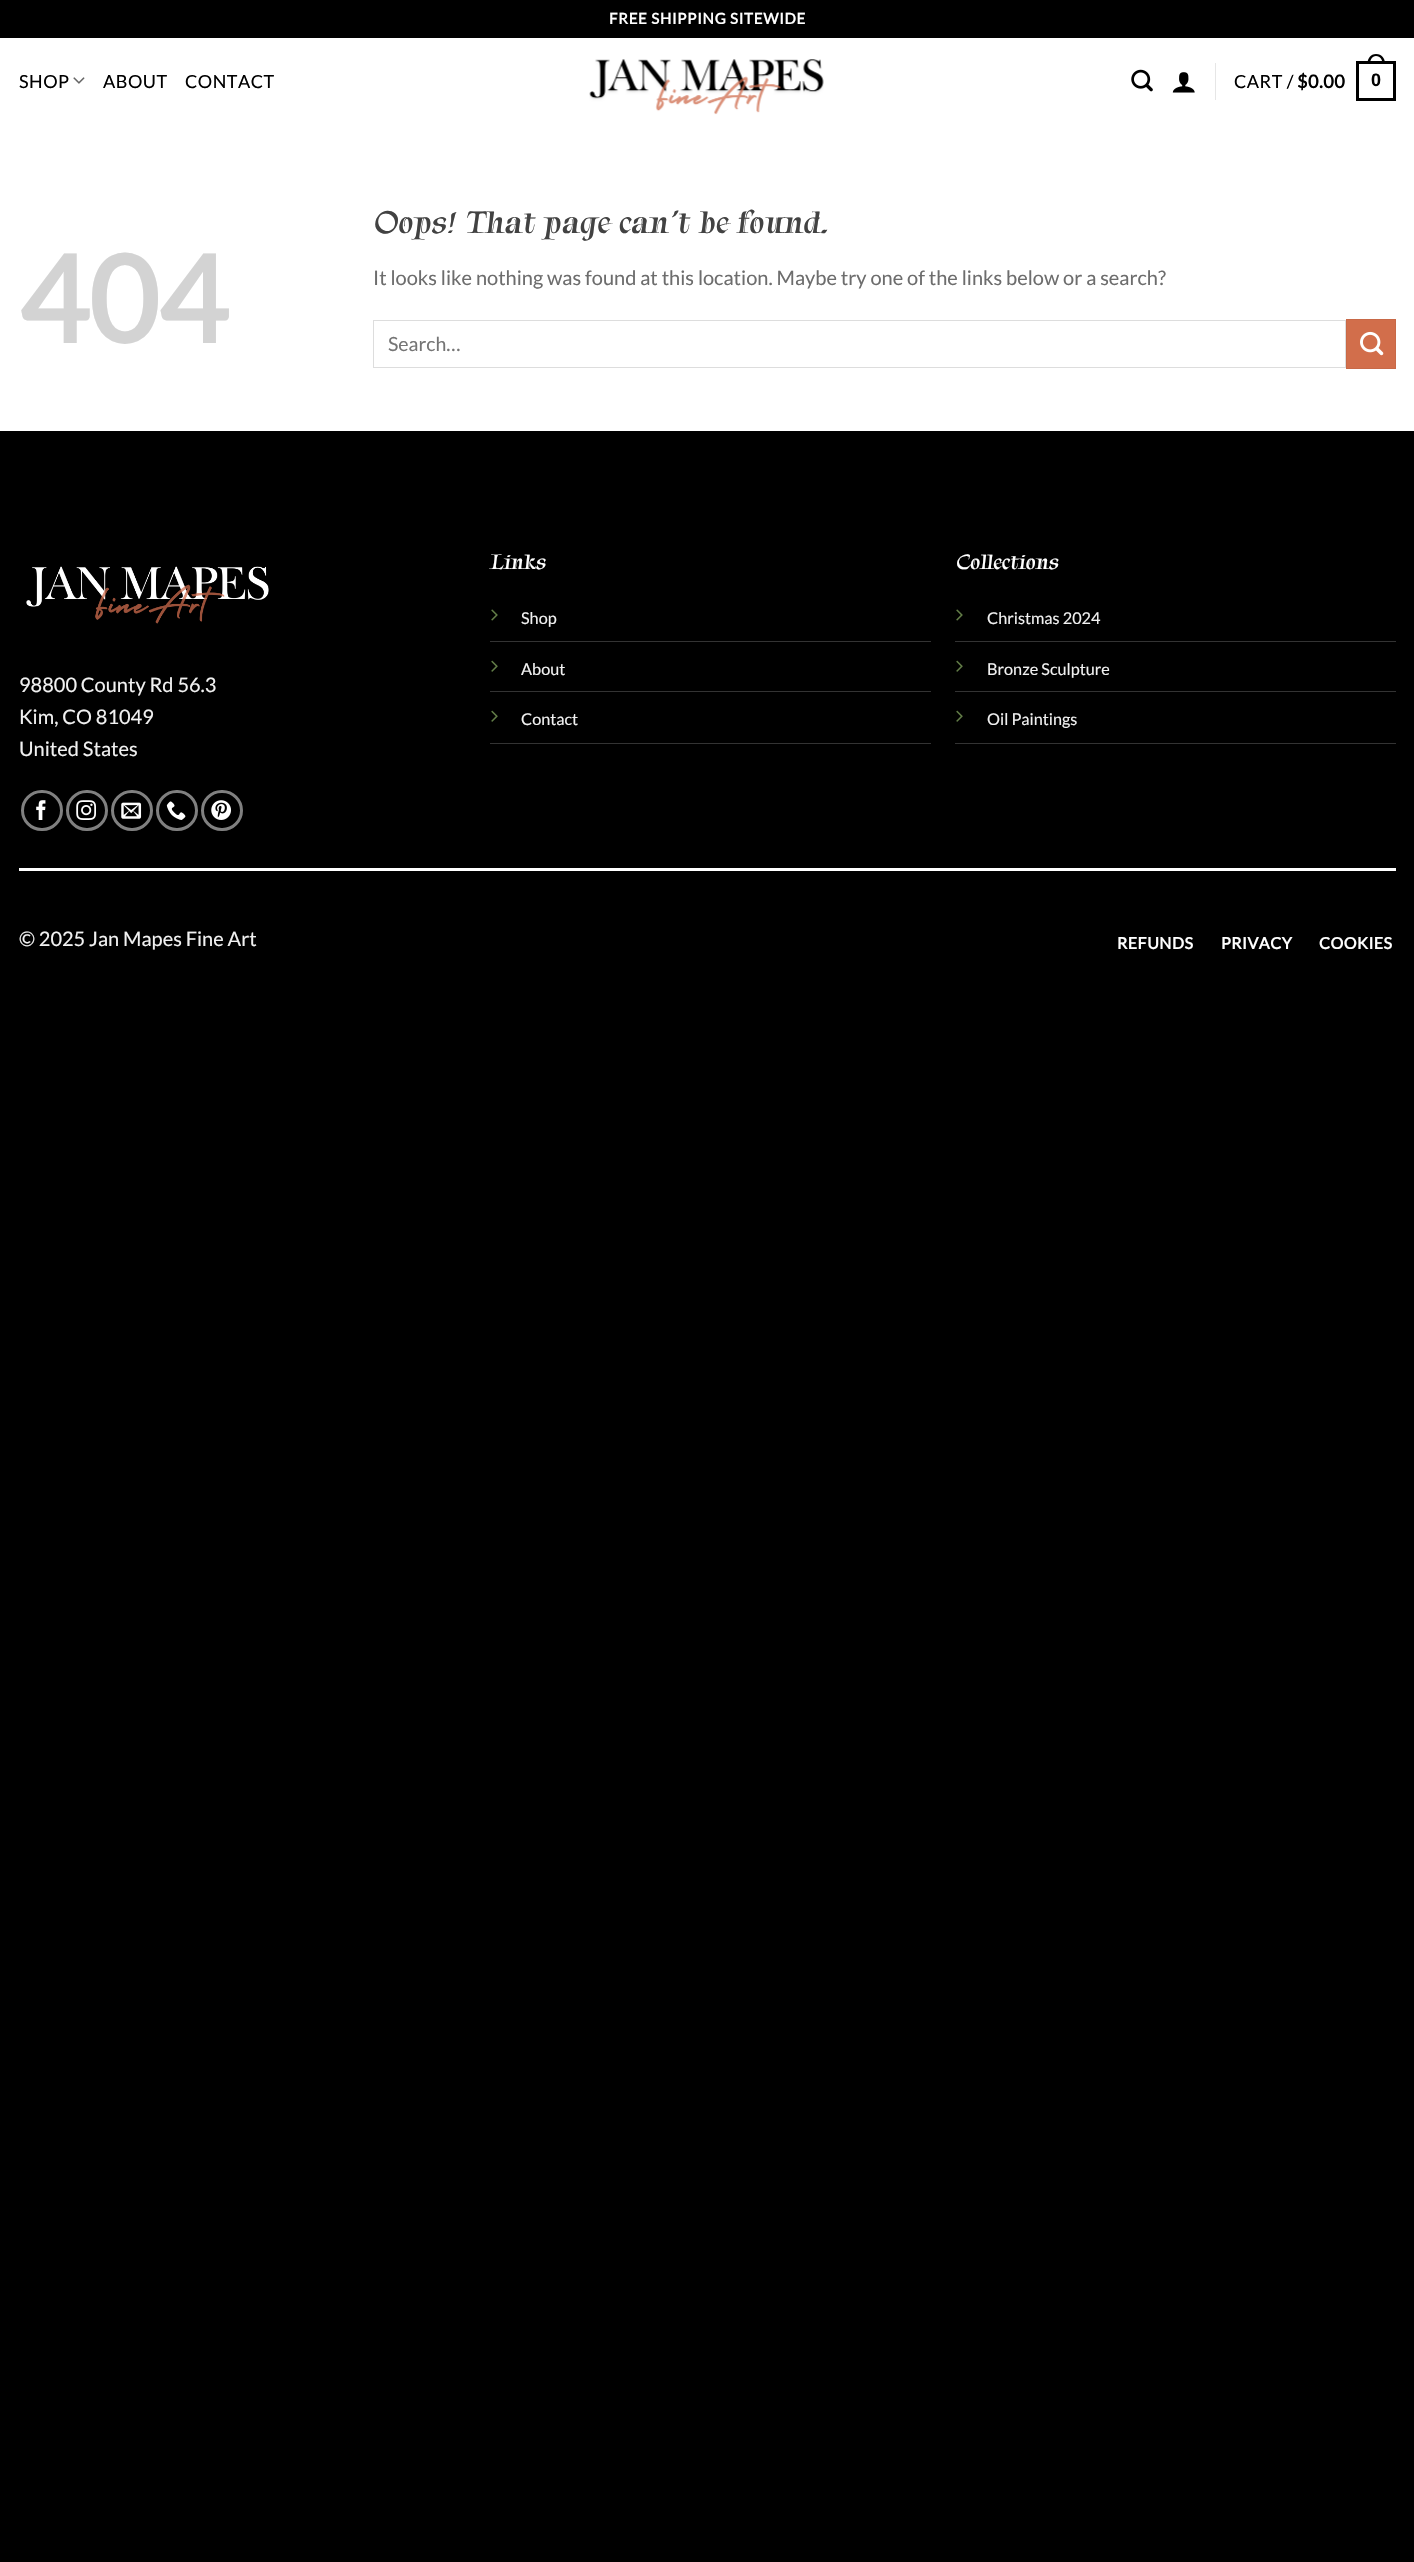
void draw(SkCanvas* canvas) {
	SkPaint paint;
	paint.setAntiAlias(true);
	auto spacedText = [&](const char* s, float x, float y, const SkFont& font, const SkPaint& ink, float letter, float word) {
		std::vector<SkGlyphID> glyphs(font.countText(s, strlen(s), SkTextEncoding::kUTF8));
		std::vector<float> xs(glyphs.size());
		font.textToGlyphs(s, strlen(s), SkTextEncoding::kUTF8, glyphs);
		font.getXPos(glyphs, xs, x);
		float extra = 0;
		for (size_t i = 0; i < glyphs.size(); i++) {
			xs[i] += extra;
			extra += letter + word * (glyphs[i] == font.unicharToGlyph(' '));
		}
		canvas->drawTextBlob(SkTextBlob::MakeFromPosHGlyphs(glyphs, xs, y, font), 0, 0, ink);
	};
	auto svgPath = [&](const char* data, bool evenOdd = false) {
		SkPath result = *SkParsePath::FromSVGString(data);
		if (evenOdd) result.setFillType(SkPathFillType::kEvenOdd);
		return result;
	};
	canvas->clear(0xff000000);
	paint.setColor(0xffffffff);
	canvas->drawRect(SkRect::MakeXYWH(0, 38, 1414, 393), paint);
	SkFont f1(fontMgr->matchFamilyStyle("Lato", SkFontStyle::Bold()), 15);
	f1.setSubpixel(true);
	spacedText("FREE SHIPPING SITEWIDE", 609, 24, f1, paint, 0.75, 0);
	SkFont f2(fontMgr->matchFamilyStyle("Lato", SkFontStyle::Normal()), 18);
	f2.setSubpixel(true);
	paint.setColor(0xff000000);
	spacedText("SHOP", 19, 88, f2, paint, 0.5, 0);
	canvas->drawImageRect(SkImages::DeferredFromEncodedData(SkData::MakeFromFileName("img1.png")), SkRect::MakeXYWH(73, 77, 12, 7), SkSamplingOptions());
	spacedText("ABOUT", 103, 88, f2, paint, 0.5, 0);
	spacedText("CONTACT", 185, 88, f2, paint, 0.5, 0);
	canvas->drawImageRect(SkImages::DeferredFromEncodedData(SkData::MakeFromFileName("img2.png")), SkRect::MakeXYWH(589, 59, 235, 56), SkSamplingOptions());
	canvas->drawImageRect(SkImages::DeferredFromEncodedData(SkData::MakeFromFileName("img3.png")), SkRect::MakeXYWH(1131, 69, 22, 23), SkSamplingOptions());
	canvas->drawImageRect(SkImages::DeferredFromEncodedData(SkData::MakeFromFileName("img4.png")), SkRect::MakeXYWH(1172, 72, 23, 21), SkSamplingOptions());
	paint.setColor(0xffe6e6e6);
	canvas->drawRect(SkRect::MakeXYWH(1215, 63, 1, 37), paint);
	paint.setColor(0xff000000);
	spacedText("CART /", 1234, 88, f2, paint, 0.5, 0);
	SkFont f3(fontMgr->matchFamilyStyle("Lato", SkFontStyle::Bold()), 18);
	f3.setSubpixel(true);
	spacedText("$0.00", 1297, 88, f3, paint, 0.5, 0);
	paint.setStroke(true);
	paint.setStrokeWidth(3);
	canvas->drawRect(SkRect::MakeXYWH(1357.5, 62.5, 37, 37), paint);
	paint.setStroke(false);
	canvas->drawPath(svgPath("M1376 54C1382 54 1385 58.5 1385 64H1367.5C1367.5 58.5 1370.5 54 1376 54ZM1376 56C1380.5 56 1382.5 60 1382.5 64H1370C1370 60 1372 56 1376 56Z", true), paint);
	SkFont f4(fontMgr->matchFamilyStyle("Liberation Sans", SkFontStyle::Bold()), 18);
	f4.setSubpixel(true);
	spacedText("0", 1371, 86, f4, paint, 0.5, 0);
	SkFont f5(fontMgr->matchFamilyStyle("Lato", SkFontStyle::Bold()), 120);
	f5.setSubpixel(true);
	paint.setColor(0xffd3d3d3);
	canvas->drawString("404", 19, 343, f5, paint);
	SkFont f6(fontMgr->matchFamilyStyle("Tapestry", SkFontStyle::Normal()), 34);
	f6.setSubpixel(true);
	paint.setColor(0xff424242);
	canvas->drawString("Oops! That page can’t be found.", 373, 233, f6, paint);
	SkFont f7(fontMgr->matchFamilyStyle("Lato", SkFontStyle::Normal()), 20);
	f7.setSubpixel(true);
	paint.setColor(0xff6d6d6d);
	canvas->drawString("It looks like nothing was found at this location. Maybe try one of the links below or a search?", 373, 285, f7, paint);
	paint.setStroke(true);
	paint.setStrokeWidth(1);
	paint.setColor(0xffdddddd);
	canvas->drawRect(SkRect::MakeXYWH(373.5, 320.5, 972, 47), paint);
	SkFont f8(fontMgr->matchFamilyStyle("Lato", SkFontStyle::Normal()), 19.5);
	f8.setSubpixel(true);
	paint.setStroke(false);
	paint.setColor(0xff757575);
	canvas->drawString("Search…", 388, 351, f8, paint);
	paint.setColor(0xffd26e4b);
	canvas->drawRect(SkRect::MakeXYWH(1346.5, 319.5, 49, 49), paint);
	paint.setStroke(true);
	paint.setColor(0xffc86947);
	canvas->drawRect(SkRect::MakeXYWH(1346.5, 319.5, 49, 49), paint);
	canvas->drawImageRect(SkImages::DeferredFromEncodedData(SkData::MakeFromFileName("img5.png")), SkRect::MakeXYWH(1360, 331, 24, 25), SkSamplingOptions());
	canvas->drawImageRect(SkImages::DeferredFromEncodedData(SkData::MakeFromFileName("img6.png")), SkRect::MakeXYWH(26, 566, 243, 58), SkSamplingOptions());
	paint.setStroke(false);
	paint.setColor(0xfff1f1f1);
	canvas->drawString("98800 County Rd 56.3", 19, 692, f7, paint);
	canvas->drawString("Kim, CO 81049", 19, 724, f7, paint);
	canvas->drawString("United States", 19, 756, f7, paint);
	paint.setStroke(true);
	paint.setStrokeWidth(3);
	paint.setColor(0xff808080);
	canvas->drawRoundRect(SkRect::MakeXYWH(22.5, 791.5, 39, 38), 19, 19, paint);
	canvas->drawImageRect(SkImages::DeferredFromEncodedData(SkData::MakeFromFileName("img7.png")), SkRect::MakeXYWH(36, 800, 10, 20), SkSamplingOptions());
	canvas->drawRoundRect(SkRect::MakeXYWH(67.5, 791.5, 39, 38), 19, 19, paint);
	canvas->drawImageRect(SkImages::DeferredFromEncodedData(SkData::MakeFromFileName("img8.png")), SkRect::MakeXYWH(76, 800, 20, 20), SkSamplingOptions());
	canvas->drawRoundRect(SkRect::MakeXYWH(112.5, 791.5, 39, 38), 19, 19, paint);
	canvas->drawImageRect(SkImages::DeferredFromEncodedData(SkData::MakeFromFileName("img9.png")), SkRect::MakeXYWH(121, 802, 21, 17), SkSamplingOptions());
	canvas->drawRoundRect(SkRect::MakeXYWH(157.5, 791.5, 39, 38), 19, 19, paint);
	canvas->drawImageRect(SkImages::DeferredFromEncodedData(SkData::MakeFromFileName("img10.png")), SkRect::MakeXYWH(166, 801, 20, 19), SkSamplingOptions());
	canvas->drawRoundRect(SkRect::MakeXYWH(202.5, 791.5, 39, 38), 19, 19, paint);
	canvas->drawImageRect(SkImages::DeferredFromEncodedData(SkData::MakeFromFileName("img11.png")), SkRect::MakeXYWH(211, 800, 20, 20), SkSamplingOptions());
	SkFont f9(fontMgr->matchFamilyStyle("Tapestry", SkFontStyle::Normal()), 22.5);
	f9.setSubpixel(true);
	paint.setStroke(false);
	paint.setColor(0xffffffff);
	canvas->drawString("Links", 490, 569, f9, paint);
	paint.setColor(0xff333333);
	canvas->drawRect(SkRect::MakeXYWH(490, 641, 441, 1), paint);
	canvas->drawImageRect(SkImages::DeferredFromEncodedData(SkData::MakeFromFileName("img12.png")), SkRect::MakeXYWH(491, 609, 7, 12), SkSamplingOptions());
	SkFont f10(fontMgr->matchFamilyStyle("Lato", SkFontStyle::Normal()), 16.25);
	f10.setSubpixel(true);
	paint.setColor(0xfff1f1f1);
	canvas->drawString("Shop", 521, 624, f10, paint);
	paint.setColor(0xff333333);
	canvas->drawRect(SkRect::MakeXYWH(490, 691, 441, 1), paint);
	canvas->drawImageRect(SkImages::DeferredFromEncodedData(SkData::MakeFromFileName("img13.png")), SkRect::MakeXYWH(491, 660, 7, 12), SkSamplingOptions());
	paint.setColor(0xfff1f1f1);
	canvas->drawString("About", 521, 675, f10, paint);
	paint.setColor(0xff333333);
	canvas->drawRect(SkRect::MakeXYWH(490, 743, 441, 1), paint);
	canvas->drawImageRect(SkImages::DeferredFromEncodedData(SkData::MakeFromFileName("img13.png")), SkRect::MakeXYWH(491, 710, 7, 12), SkSamplingOptions());
	paint.setColor(0xfff1f1f1);
	canvas->drawString("Contact", 521, 725, f10, paint);
	paint.setColor(0xffffffff);
	canvas->drawString("Collections", 956, 569, f9, paint);
	paint.setColor(0xff333333);
	canvas->drawRect(SkRect::MakeXYWH(955, 641, 441, 1), paint);
	canvas->drawImageRect(SkImages::DeferredFromEncodedData(SkData::MakeFromFileName("img12.png")), SkRect::MakeXYWH(956, 609, 7, 12), SkSamplingOptions());
	paint.setColor(0xfff1f1f1);
	canvas->drawString("Christmas 2024", 987, 624, f10, paint);
	paint.setColor(0xff333333);
	canvas->drawRect(SkRect::MakeXYWH(955, 691, 441, 1), paint);
	canvas->drawImageRect(SkImages::DeferredFromEncodedData(SkData::MakeFromFileName("img13.png")), SkRect::MakeXYWH(956, 660, 7, 12), SkSamplingOptions());
	paint.setColor(0xfff1f1f1);
	canvas->drawString("Bronze Sculpture", 987, 675, f10, paint);
	paint.setColor(0xff333333);
	canvas->drawRect(SkRect::MakeXYWH(955, 743, 441, 1), paint);
	canvas->drawImageRect(SkImages::DeferredFromEncodedData(SkData::MakeFromFileName("img13.png")), SkRect::MakeXYWH(956, 710, 7, 12), SkSamplingOptions());
	paint.setColor(0xfff1f1f1);
	canvas->drawString("Oil Paintings", 987, 725, f10, paint);
	paint.setColor(0xffffffff);
	canvas->drawRect(SkRect::MakeXYWH(19, 868, 1377, 3), paint);
	paint.setColor(0xfff1f1f1);
	canvas->drawString("© 2025 Jan Mapes Fine Art", 19, 946, f7, paint);
	SkFont f11(fontMgr->matchFamilyStyle("Lato", SkFontStyle::Bold()), 16);
	f11.setSubpixel(true);
	paint.setColor(0xffffffff);
	spacedText("REFUNDS", 1117, 949, f11, paint, 0.5, 0);
	spacedText("PRIVACY", 1221, 949, f11, paint, 0.5, 0);
	spacedText("COOKIES", 1319, 949, f11, paint, 0.5, 0);
}
